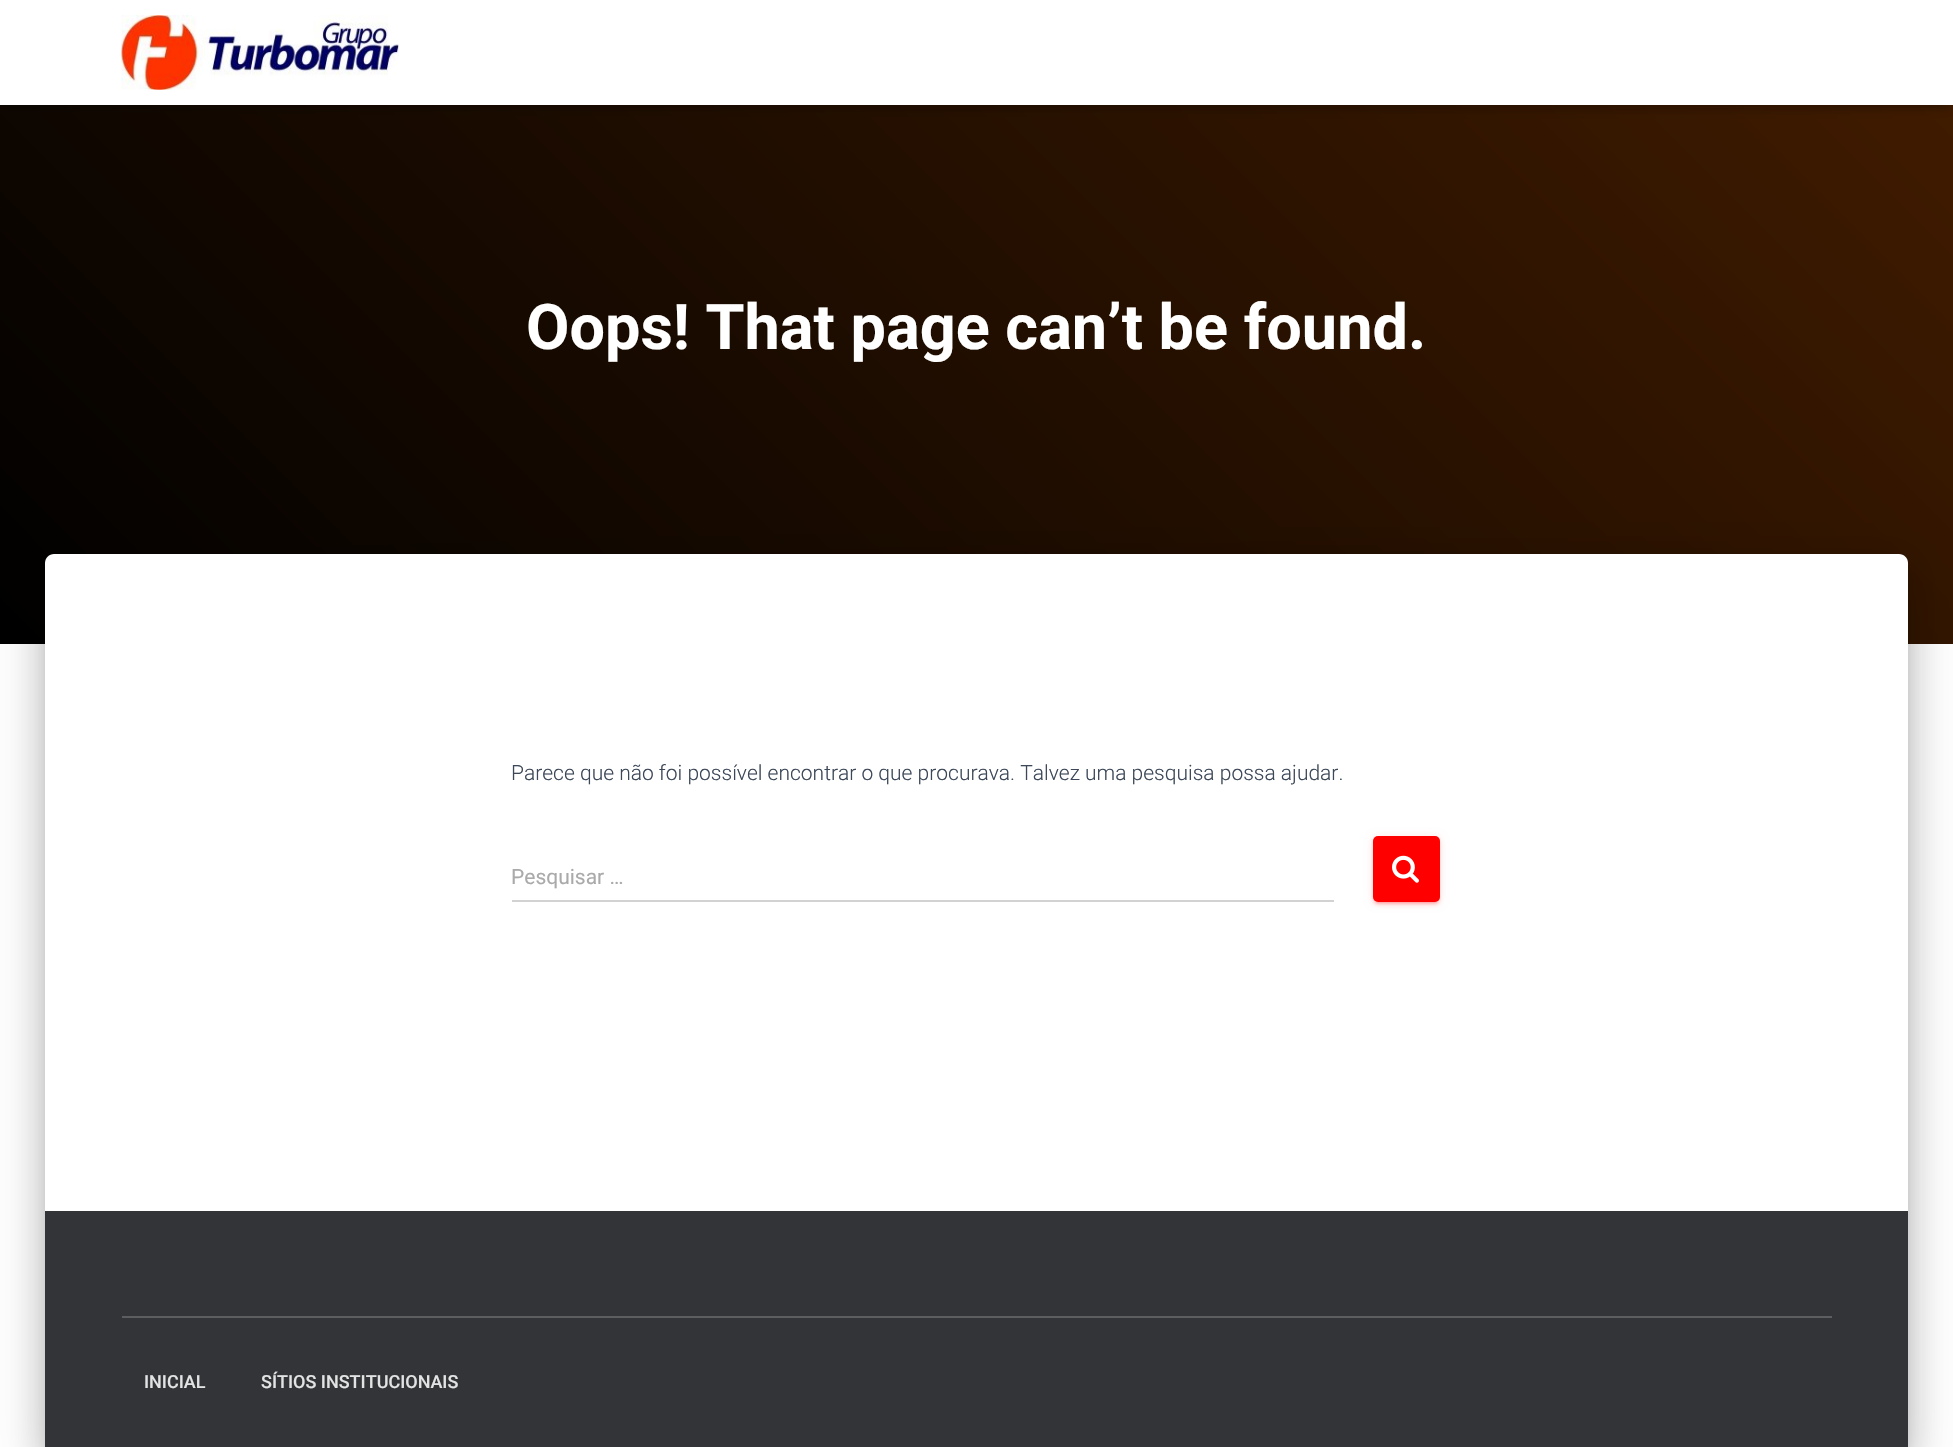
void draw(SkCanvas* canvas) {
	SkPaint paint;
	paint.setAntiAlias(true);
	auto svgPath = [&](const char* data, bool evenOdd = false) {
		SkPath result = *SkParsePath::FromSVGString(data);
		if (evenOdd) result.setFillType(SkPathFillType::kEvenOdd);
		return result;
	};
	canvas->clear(0xffffffff);
	{
		const SkColor colors[] = {0xff000000, 0xff421c00};
		const float stops[] = {0, 1};
		const SkPoint ends[] = {{327, 971}, {1626, -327}};
		paint.setShader(SkGradientShader::MakeLinear(ends, colors, stops, 2, SkTileMode::kClamp));
		paint.setAlpha(255);
	}
	canvas->drawRect(SkRect::MakeXYWH(0, 105, 1953, 539), paint);
	paint.setShader(nullptr);
	paint.setColor(0x1a000000);
	paint.setMaskFilter(SkMaskFilter::MakeBlur(kNormal_SkBlurStyle, 4));
	canvas->drawRect(SkRect::MakeXYWH(3, 9, 1947, 99), paint);
	paint.setMaskFilter(nullptr);
	paint.setColor(0x1f000000);
	paint.setMaskFilter(SkMaskFilter::MakeBlur(kNormal_SkBlurStyle, 7.5));
	canvas->drawRect(SkRect::MakeXYWH(0, 2, 1953, 105), paint);
	paint.setMaskFilter(nullptr);
	paint.setColor(0x6b000000);
	paint.setMaskFilter(SkMaskFilter::MakeBlur(kNormal_SkBlurStyle, 7.5));
	canvas->drawRect(SkRect::MakeXYWH(9, 11, 1935, 87), paint);
	paint.setMaskFilter(nullptr);
	paint.setColor(0xffffffff);
	canvas->drawRect(SkRect::MakeXYWH(0, 0, 1953, 105), paint);
	canvas->drawImageRect(SkImages::DeferredFromEncodedData(SkData::MakeFromFileName("img1.png")), SkRect::MakeXYWH(121, 15, 278, 75), SkSamplingOptions());
	SkFont f1(fontMgr->matchFamilyStyle("Roboto", SkFontStyle::Bold()), 63);
	f1.setSubpixel(true);
	canvas->drawString("Oops! That page can’t be found.", 526, 349, f1, paint);
	paint.setColor(0x33000000);
	paint.setMaskFilter(SkMaskFilter::MakeBlur(kNormal_SkBlurStyle, 7.5));
	canvas->drawRoundRect(SkRect::MakeXYWH(53, 573, 1848, 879), 1.5, 1.5, paint);
	paint.setMaskFilter(nullptr);
	paint.setColor(0x1f000000);
	paint.setMaskFilter(SkMaskFilter::MakeBlur(kNormal_SkBlurStyle, 22.5));
	canvas->drawRoundRect(SkRect::MakeXYWH(38, 555, 1878, 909), 17, 17, paint);
	paint.setMaskFilter(nullptr);
	paint.setColor(0x24000000);
	paint.setMaskFilter(SkMaskFilter::MakeBlur(kNormal_SkBlurStyle, 18));
	canvas->drawRoundRect(SkRect::MakeXYWH(42, 575, 1869, 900), 12, 12, paint);
	paint.setMaskFilter(nullptr);
	paint.setColor(0xffffffff);
	canvas->drawPath(svgPath("M54 554H1899C1904 554 1908 558 1908 563V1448H45V563C45 558 49 554 54 554Z"), paint);
	SkFont f2(fontMgr->matchFamilyStyle("Roboto", SkFontStyle(300, SkFontStyle::kNormal_Width, SkFontStyle::kUpright_Slant)), 21);
	f2.setSubpixel(true);
	paint.setColor(0xff3c4858);
	canvas->drawString("Parece que não foi possível encontrar o que procurava. Talvez uma pesquisa possa ajudar.", 511, 780, f2, paint);
	SkFont f3(fontMgr->matchFamilyStyle("Roboto", SkFontStyle::Normal()), 21);
	f3.setSubpixel(true);
	paint.setColor(0xffaaaaaa);
	canvas->drawString("Pesquisar …", 511, 884, f3, paint);
	paint.setColor(0xffd2d2d2);
	canvas->drawRect(SkRect::MakeXYWH(512, 900, 822, 2), paint);
	paint.setColor(0x1fff0000);
	paint.setMaskFilter(SkMaskFilter::MakeBlur(kNormal_SkBlurStyle, 4));
	canvas->drawRoundRect(SkRect::MakeXYWH(1373, 837, 67, 66), 5, 5, paint);
	paint.setMaskFilter(nullptr);
	paint.setColor(0x33ff0000);
	paint.setMaskFilter(SkMaskFilter::MakeBlur(kNormal_SkBlurStyle, 1));
	canvas->drawRoundRect(SkRect::MakeXYWH(1376, 843, 61, 60), 1.5, 1.5, paint);
	paint.setMaskFilter(nullptr);
	paint.setColor(0x24ff0000);
	paint.setMaskFilter(SkMaskFilter::MakeBlur(kNormal_SkBlurStyle, 1.5));
	canvas->drawRoundRect(SkRect::MakeXYWH(1373, 839, 67, 66), 5, 5, paint);
	paint.setMaskFilter(nullptr);
	paint.setColor(0xffff0000);
	canvas->drawRoundRect(SkRect::MakeXYWH(1373, 836, 67, 66), 5, 5, paint);
	canvas->drawImageRect(SkImages::DeferredFromEncodedData(SkData::MakeFromFileName("img2.png")), SkRect::MakeXYWH(1392, 855, 27, 28), SkSamplingOptions());
	paint.setColor(0xff323437);
	canvas->drawRect(SkRect::MakeXYWH(45, 1211, 1863, 236), paint);
	paint.setColor(0xff5b5d5f);
	canvas->drawRect(SkRect::MakeXYWH(122, 1316, 1710, 2), paint);
	SkFont f4(fontMgr->matchFamilyStyle("Roboto", SkFontStyle(500, SkFontStyle::kNormal_Width, SkFontStyle::kUpright_Slant)), 18);
	f4.setSubpixel(true);
	paint.setColor(0xffe2e3e3);
	canvas->drawString("INICIAL", 144, 1388, f4, paint);
	canvas->drawString("SÍTIOS INSTITUCIONAIS", 261, 1388, f4, paint);
}
